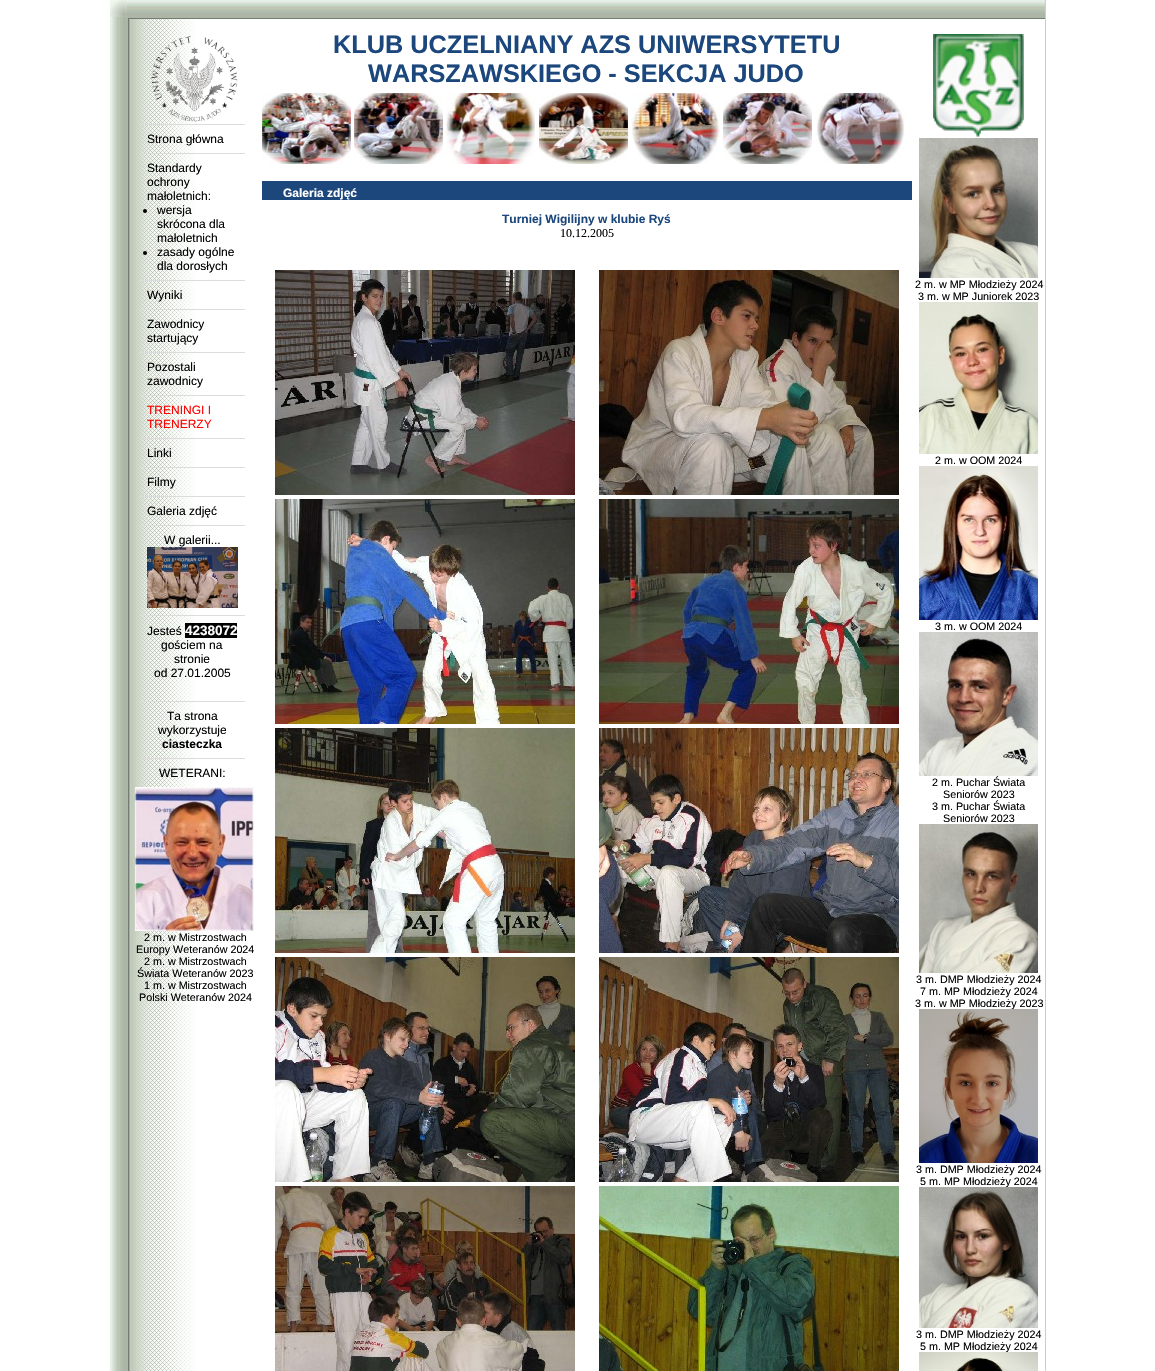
void draw(SkCanvas* canvas) {
	SkPaint paint;
	paint.setAntiAlias(true);
	canvas->clear(0xffffffff);
	paint.setColor(0xffcccccc);
	canvas->drawRect(SkRect::MakeXYWH(1045, 0, 1, 1371), paint);
	canvas->drawImageRect(SkImages::DeferredFromEncodedData(SkData::MakeFromFileName("img1.png")), SkRect::MakeXYWH(110, 0, 19, 19), SkSamplingOptions());
	canvas->drawImageRect(SkImages::DeferredFromEncodedData(SkData::MakeFromFileName("img2.png")), SkRect::MakeXYWH(129, 0, 132, 19), SkSamplingOptions());
	canvas->drawImageRect(SkImages::DeferredFromEncodedData(SkData::MakeFromFileName("img3.png")), SkRect::MakeXYWH(261, 0, 652, 19), SkSamplingOptions());
	canvas->drawImageRect(SkImages::DeferredFromEncodedData(SkData::MakeFromFileName("img2.png")), SkRect::MakeXYWH(913, 0, 132, 19), SkSamplingOptions());
	canvas->drawImageRect(SkImages::DeferredFromEncodedData(SkData::MakeFromFileName("img4.png")), SkRect::MakeXYWH(110, 19, 19, 1352), SkSamplingOptions());
	canvas->drawImageRect(SkImages::DeferredFromEncodedData(SkData::MakeFromFileName("img5.png")), SkRect::MakeXYWH(129, 19, 66, 1352), SkSamplingOptions());
	canvas->drawImageRect(SkImages::DeferredFromEncodedData(SkData::MakeFromFileName("img6.png")), SkRect::MakeXYWH(151, 36, 87, 86), SkSamplingOptions());
	paint.setColor(0xffdcdcdc);
	canvas->drawRect(SkRect::MakeXYWH(140, 124, 105, 1), paint);
	SkFont f1(fontMgr->matchFamilyStyle("Liberation Sans", SkFontStyle::Normal()), 12);
	f1.setSubpixel(true);
	paint.setColor(0xff000000);
	canvas->drawString("Strona główna", 147, 143, f1, paint);
	paint.setColor(0xffdcdcdc);
	canvas->drawRect(SkRect::MakeXYWH(140, 153, 105, 1), paint);
	paint.setColor(0xff000000);
	canvas->drawString("Standardy", 147, 172, f1, paint);
	canvas->drawString("ochrony", 147, 186, f1, paint);
	canvas->drawString("małoletnich:", 147, 200, f1, paint);
	canvas->drawCircle(145, 211, 2, paint);
	canvas->drawString("wersja", 157, 214, f1, paint);
	canvas->drawString("skrócona dla", 157, 228, f1, paint);
	canvas->drawString("małoletnich", 157, 242, f1, paint);
	canvas->drawCircle(145, 253, 2, paint);
	canvas->drawString("zasady ogólne", 157, 256, f1, paint);
	canvas->drawString("dla dorosłych", 157, 270, f1, paint);
	paint.setColor(0xffdcdcdc);
	canvas->drawRect(SkRect::MakeXYWH(140, 280, 105, 1), paint);
	paint.setColor(0xff000000);
	canvas->drawString("Wyniki", 147, 299, f1, paint);
	paint.setColor(0xffdcdcdc);
	canvas->drawRect(SkRect::MakeXYWH(140, 309, 105, 1), paint);
	paint.setColor(0xff000000);
	canvas->drawString("Zawodnicy", 147, 328, f1, paint);
	canvas->drawString("startujący", 147, 342, f1, paint);
	paint.setColor(0xffdcdcdc);
	canvas->drawRect(SkRect::MakeXYWH(140, 352, 105, 1), paint);
	paint.setColor(0xff000000);
	canvas->drawString("Pozostali", 147, 371, f1, paint);
	canvas->drawString("zawodnicy", 147, 385, f1, paint);
	paint.setColor(0xffdcdcdc);
	canvas->drawRect(SkRect::MakeXYWH(140, 395, 105, 1), paint);
	paint.setColor(0xffff0000);
	canvas->drawString("TRENINGI I", 147, 414, f1, paint);
	canvas->drawString("TRENERZY", 147, 428, f1, paint);
	paint.setColor(0xffdcdcdc);
	canvas->drawRect(SkRect::MakeXYWH(140, 438, 105, 1), paint);
	paint.setColor(0xff000000);
	canvas->drawString("Linki", 147, 457, f1, paint);
	paint.setColor(0xffdcdcdc);
	canvas->drawRect(SkRect::MakeXYWH(140, 467, 105, 1), paint);
	paint.setColor(0xff000000);
	canvas->drawString("Filmy", 147, 486, f1, paint);
	paint.setColor(0xffdcdcdc);
	canvas->drawRect(SkRect::MakeXYWH(140, 496, 105, 1), paint);
	paint.setColor(0xff000000);
	canvas->drawString("Galeria zdjęć", 147, 515, f1, paint);
	paint.setColor(0xffdcdcdc);
	canvas->drawRect(SkRect::MakeXYWH(140, 525, 105, 1), paint);
	paint.setColor(0xff000000);
	canvas->drawString("W galerii...", 164, 544, f1, paint);
	canvas->drawImageRect(SkImages::DeferredFromEncodedData(SkData::MakeFromFileName("img7.png")), SkRect::MakeXYWH(147, 547, 91, 61), SkSamplingOptions());
	paint.setColor(0xffdcdcdc);
	canvas->drawRect(SkRect::MakeXYWH(140, 615, 105, 1), paint);
	paint.setColor(0xff000000);
	canvas->drawString("Jesteś", 147, 635, f1, paint);
	canvas->drawRect(SkRect::MakeXYWH(185, 623, 52, 15), paint);
	SkFont f2(fontMgr->matchFamilyStyle("Liberation Sans", SkFontStyle::Bold()), 13.5);
	f2.setSubpixel(true);
	paint.setColor(0xffffffff);
	canvas->drawString("4238072", 185, 635, f2, paint);
	paint.setColor(0xff000000);
	canvas->drawString("gościem na", 161, 649, f1, paint);
	canvas->drawString("stronie", 174, 663, f1, paint);
	canvas->drawString("od 27.01.2005", 154, 677, f1, paint);
	paint.setColor(0xffdcdcdc);
	canvas->drawRect(SkRect::MakeXYWH(140, 701, 105, 1), paint);
	paint.setColor(0xff000000);
	canvas->drawString("Ta strona", 167, 720, f1, paint);
	canvas->drawString("wykorzystuje", 158, 734, f1, paint);
	SkFont f3(fontMgr->matchFamilyStyle("Liberation Sans", SkFontStyle::Bold()), 12);
	f3.setSubpixel(true);
	canvas->drawString("ciasteczka", 162, 748, f3, paint);
	paint.setColor(0xffdcdcdc);
	canvas->drawRect(SkRect::MakeXYWH(140, 758, 105, 1), paint);
	paint.setColor(0xff000000);
	canvas->drawString("WETERANI:", 159, 777, f1, paint);
	canvas->drawImageRect(SkImages::DeferredFromEncodedData(SkData::MakeFromFileName("img8.png")), SkRect::MakeXYWH(135, 787, 119, 144), SkSamplingOptions());
	SkFont f4(fontMgr->matchFamilyStyle("Liberation Sans", SkFontStyle::Normal()), 10.75);
	f4.setSubpixel(true);
	canvas->drawString("2 m. w Mistrzostwach", 144, 941, f4, paint);
	canvas->drawString("Europy Weteranów 2024", 136, 953, f4, paint);
	canvas->drawString("2 m. w Mistrzostwach", 144, 965, f4, paint);
	canvas->drawString("Świata Weteranów 2023", 137, 977, f4, paint);
	canvas->drawString("1 m. w Mistrzostwach", 144, 989, f4, paint);
	canvas->drawString("Polski Weteranów 2024", 139, 1001, f4, paint);
	SkFont f5(fontMgr->matchFamilyStyle("Liberation Sans", SkFontStyle::Bold()), 25.3);
	f5.setSubpixel(true);
	paint.setColor(0xff1c477c);
	canvas->drawString("KLUB UCZELNIANY AZS UNIWERSYTETU", 333, 53, f5, paint);
	canvas->drawString("WARSZAWSKIEGO - SEKCJA JUDO", 368, 82, f5, paint);
	canvas->drawImageRect(SkImages::DeferredFromEncodedData(SkData::MakeFromFileName("img9.png")), SkRect::MakeXYWH(262, 93, 89, 71), SkSamplingOptions());
	canvas->drawImageRect(SkImages::DeferredFromEncodedData(SkData::MakeFromFileName("img10.png")), SkRect::MakeXYWH(354, 93, 89, 71), SkSamplingOptions());
	canvas->drawImageRect(SkImages::DeferredFromEncodedData(SkData::MakeFromFileName("img11.png")), SkRect::MakeXYWH(446, 93, 89, 71), SkSamplingOptions());
	canvas->drawImageRect(SkImages::DeferredFromEncodedData(SkData::MakeFromFileName("img12.png")), SkRect::MakeXYWH(539, 93, 89, 71), SkSamplingOptions());
	canvas->drawImageRect(SkImages::DeferredFromEncodedData(SkData::MakeFromFileName("img13.png")), SkRect::MakeXYWH(631, 93, 89, 71), SkSamplingOptions());
	canvas->drawImageRect(SkImages::DeferredFromEncodedData(SkData::MakeFromFileName("img14.png")), SkRect::MakeXYWH(723, 93, 89, 71), SkSamplingOptions());
	canvas->drawImageRect(SkImages::DeferredFromEncodedData(SkData::MakeFromFileName("img15.png")), SkRect::MakeXYWH(816, 93, 89, 71), SkSamplingOptions());
	canvas->drawRect(SkRect::MakeXYWH(262, 181, 650, 19), paint);
	paint.setColor(0xffffffff);
	canvas->drawString("Galeria zdjęć", 283, 197, f3, paint);
	paint.setColor(0xff1c477c);
	canvas->drawString("Turniej Wigilijny w klubie Ryś", 502, 223, f3, paint);
	SkFont f6(fontMgr->matchFamilyStyle("Liberation Serif", SkFontStyle::Normal()), 12);
	f6.setSubpixel(true);
	paint.setColor(0xff000000);
	canvas->drawString("10.12.2005", 560, 237, f6, paint);
	canvas->drawImageRect(SkImages::DeferredFromEncodedData(SkData::MakeFromFileName("img16.png")), SkRect::MakeXYWH(275, 270, 300, 225), SkSamplingOptions());
	canvas->drawImageRect(SkImages::DeferredFromEncodedData(SkData::MakeFromFileName("img17.png")), SkRect::MakeXYWH(599, 270, 300, 225), SkSamplingOptions());
	canvas->drawImageRect(SkImages::DeferredFromEncodedData(SkData::MakeFromFileName("img18.png")), SkRect::MakeXYWH(275, 499, 300, 225), SkSamplingOptions());
	canvas->drawImageRect(SkImages::DeferredFromEncodedData(SkData::MakeFromFileName("img19.png")), SkRect::MakeXYWH(599, 499, 300, 225), SkSamplingOptions());
	canvas->drawImageRect(SkImages::DeferredFromEncodedData(SkData::MakeFromFileName("img20.png")), SkRect::MakeXYWH(275, 728, 300, 225), SkSamplingOptions());
	canvas->drawImageRect(SkImages::DeferredFromEncodedData(SkData::MakeFromFileName("img21.png")), SkRect::MakeXYWH(599, 728, 300, 225), SkSamplingOptions());
	canvas->drawImageRect(SkImages::DeferredFromEncodedData(SkData::MakeFromFileName("img22.png")), SkRect::MakeXYWH(275, 957, 300, 225), SkSamplingOptions());
	canvas->drawImageRect(SkImages::DeferredFromEncodedData(SkData::MakeFromFileName("img23.png")), SkRect::MakeXYWH(599, 957, 300, 225), SkSamplingOptions());
	canvas->drawImageRect(SkImages::DeferredFromEncodedData(SkData::MakeFromFileName("img24.png")), SkRect::MakeXYWH(275, 1186, 300, 185), SkSamplingOptions());
	canvas->drawImageRect(SkImages::DeferredFromEncodedData(SkData::MakeFromFileName("img25.png")), SkRect::MakeXYWH(599, 1186, 300, 185), SkSamplingOptions());
	canvas->drawImageRect(SkImages::DeferredFromEncodedData(SkData::MakeFromFileName("img26.png")), SkRect::MakeXYWH(933, 34, 91, 103), SkSamplingOptions());
	canvas->drawImageRect(SkImages::DeferredFromEncodedData(SkData::MakeFromFileName("img27.png")), SkRect::MakeXYWH(919, 138, 119, 140), SkSamplingOptions());
	canvas->drawString("2 m. w MP Młodzieży 2024", 915, 288, f4, paint);
	canvas->drawString("3 m. w MP Juniorek 2023", 918, 300, f4, paint);
	canvas->drawImageRect(SkImages::DeferredFromEncodedData(SkData::MakeFromFileName("img28.png")), SkRect::MakeXYWH(919, 302, 119, 152), SkSamplingOptions());
	canvas->drawString("2 m. w OOM 2024", 935, 464, f4, paint);
	canvas->drawImageRect(SkImages::DeferredFromEncodedData(SkData::MakeFromFileName("img29.png")), SkRect::MakeXYWH(919, 466, 119, 154), SkSamplingOptions());
	canvas->drawString("3 m. w OOM 2024", 935, 630, f4, paint);
	canvas->drawImageRect(SkImages::DeferredFromEncodedData(SkData::MakeFromFileName("img30.png")), SkRect::MakeXYWH(919, 632, 119, 144), SkSamplingOptions());
	canvas->drawString("2 m. Puchar Świata", 932, 786, f4, paint);
	canvas->drawString("Seniorów 2023", 943, 798, f4, paint);
	canvas->drawString("3 m. Puchar Świata", 932, 810, f4, paint);
	canvas->drawString("Seniorów 2023", 943, 822, f4, paint);
	canvas->drawImageRect(SkImages::DeferredFromEncodedData(SkData::MakeFromFileName("img31.png")), SkRect::MakeXYWH(919, 824, 119, 149), SkSamplingOptions());
	canvas->drawString("3 m. DMP Młodzieży 2024", 916, 983, f4, paint);
	canvas->drawString("7 m. MP Młodzieży 2024", 920, 995, f4, paint);
	canvas->drawString("3 m. w MP Młodzieży 2023", 915, 1007, f4, paint);
	canvas->drawImageRect(SkImages::DeferredFromEncodedData(SkData::MakeFromFileName("img32.png")), SkRect::MakeXYWH(919, 1009, 119, 154), SkSamplingOptions());
	canvas->drawString("3 m. DMP Młodzieży 2024", 916, 1173, f4, paint);
	canvas->drawString("5 m. MP Młodzieży 2024", 920, 1185, f4, paint);
	canvas->drawImageRect(SkImages::DeferredFromEncodedData(SkData::MakeFromFileName("img33.png")), SkRect::MakeXYWH(919, 1187, 119, 141), SkSamplingOptions());
	canvas->drawString("3 m. DMP Młodzieży 2024", 916, 1338, f4, paint);
	canvas->drawString("5 m. MP Młodzieży 2024", 920, 1350, f4, paint);
	canvas->drawImageRect(SkImages::DeferredFromEncodedData(SkData::MakeFromFileName("img34.png")), SkRect::MakeXYWH(919, 1352, 119, 19), SkSamplingOptions());
}
